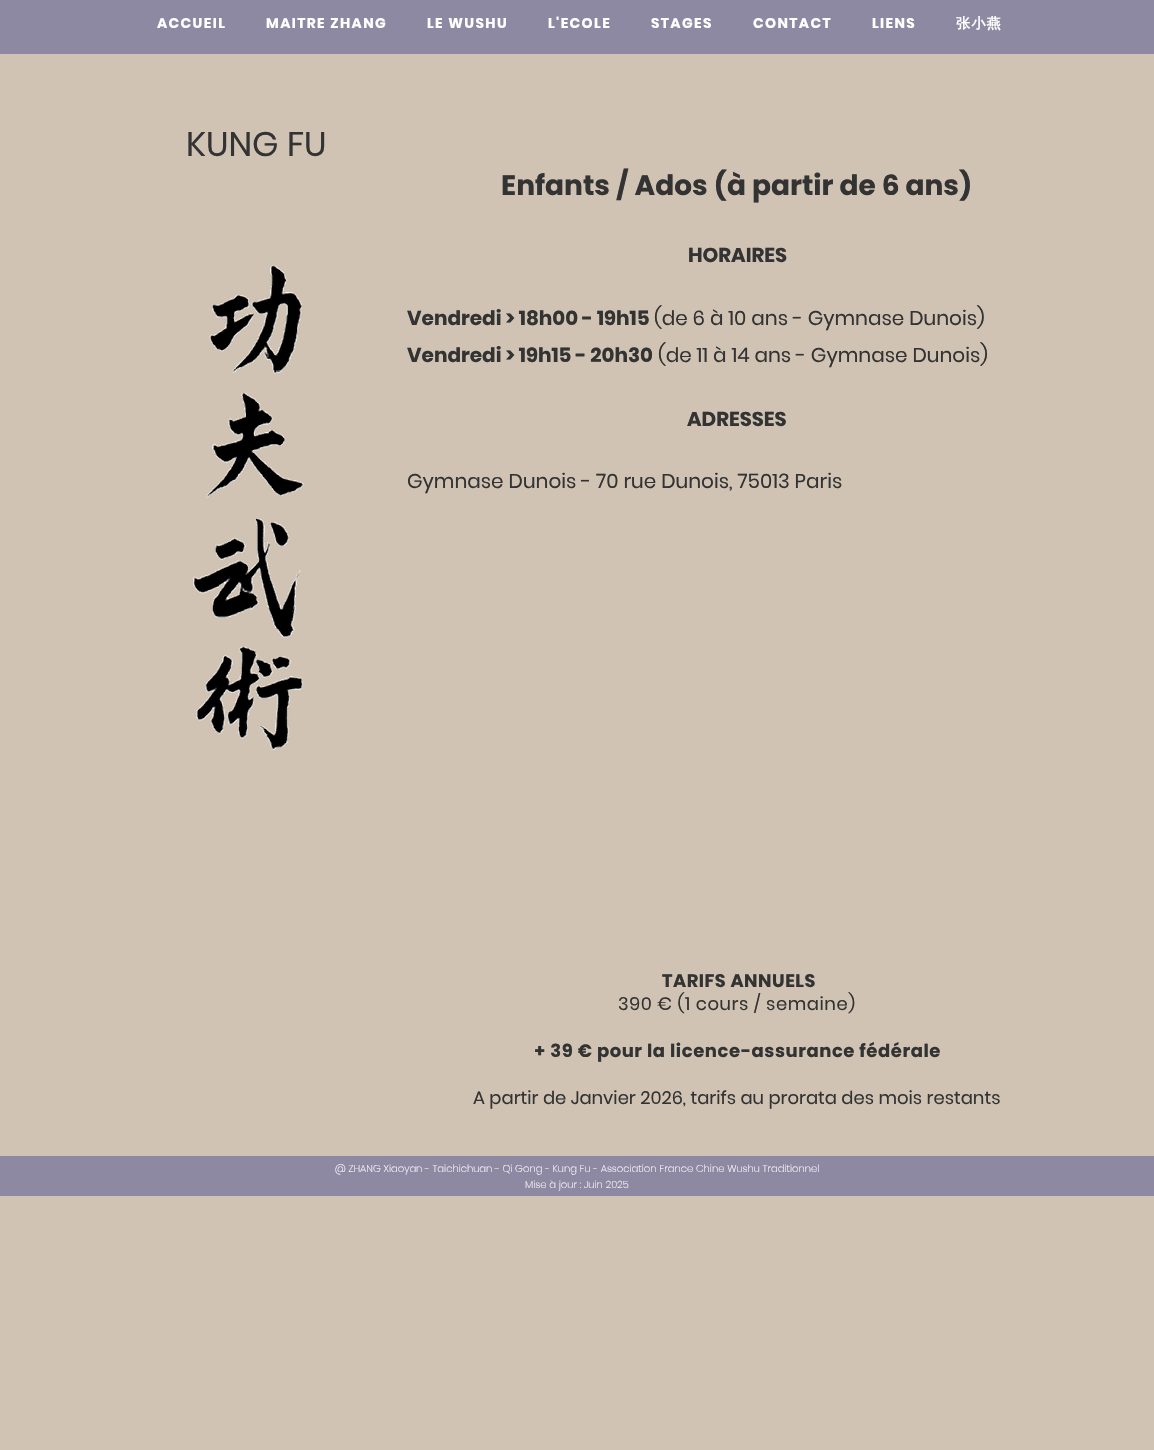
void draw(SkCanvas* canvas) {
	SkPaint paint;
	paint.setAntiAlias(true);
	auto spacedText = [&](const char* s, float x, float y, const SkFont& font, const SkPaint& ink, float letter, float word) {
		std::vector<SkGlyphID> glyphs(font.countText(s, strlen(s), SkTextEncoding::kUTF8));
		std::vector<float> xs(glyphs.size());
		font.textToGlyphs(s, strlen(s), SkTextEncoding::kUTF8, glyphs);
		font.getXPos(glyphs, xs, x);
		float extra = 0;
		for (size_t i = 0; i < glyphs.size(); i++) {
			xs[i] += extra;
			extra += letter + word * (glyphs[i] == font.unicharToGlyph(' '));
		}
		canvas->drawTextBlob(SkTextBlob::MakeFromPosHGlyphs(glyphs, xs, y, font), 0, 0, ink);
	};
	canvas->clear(0xffd0c3b3);
	paint.setColor(0xff8e89a2);
	canvas->drawRect(SkRect::MakeXYWH(0, 0, 1154, 54), paint);
	SkFont f1(fontMgr->matchFamilyStyle("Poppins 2", SkFontStyle::Bold()), 14);
	f1.setSubpixel(true);
	paint.setColor(0xffffffff);
	spacedText("ACCUEIL", 157, 28, f1, paint, 1.4, 0);
	spacedText("MAITRE ZHANG", 266, 28, f1, paint, 1.4, 0);
	spacedText("LE WUSHU", 427, 28, f1, paint, 1.4, 0);
	spacedText("L'ECOLE", 548, 28, f1, paint, 1.4, 0);
	spacedText("STAGES", 651, 28, f1, paint, 1.4, 0);
	spacedText("CONTACT", 753, 28, f1, paint, 1.4, 0);
	spacedText("LIENS", 872, 28, f1, paint, 1.4, 0);
	SkFont f2(fontMgr->matchFamilyStyle("WenQuanYi Zen Hei", SkFontStyle::Bold()), 14);
	f2.setSubpixel(true);
	spacedText("张小燕", 956, 28, f2, paint, 1.4, 0);
	SkFont f3(fontMgr->matchFamilyStyle("Poppins", SkFontStyle::Normal()), 34);
	f3.setSubpixel(true);
	paint.setColor(0xff333333);
	canvas->drawString("KUNG FU", 186, 156, f3, paint);
	canvas->drawImageRect(SkImages::DeferredFromEncodedData(SkData::MakeFromFileName("img1.png")), SkRect::MakeXYWH(193, 265, 111, 485), SkSamplingOptions());
	SkFont f4(fontMgr->matchFamilyStyle("Poppins", SkFontStyle::Bold()), 28);
	f4.setSubpixel(true);
	canvas->drawString("Enfants / Ados (à partir de 6 ans)", 501, 195, f4, paint);
	SkFont f5(fontMgr->matchFamilyStyle("Poppins 2", SkFontStyle::Bold()), 20);
	f5.setSubpixel(true);
	canvas->drawString("HORAIRES", 688, 262, f5, paint);
	canvas->drawString("Vendredi > 18h00 - 19h15", 407, 325, f5, paint);
	SkFont f6(fontMgr->matchFamilyStyle("Poppins", SkFontStyle::Normal()), 20);
	f6.setSubpixel(true);
	canvas->drawString("(de 6 à 10 ans - Gymnase Dunois)", 654, 325, f6, paint);
	canvas->drawString("Vendredi > 19h15 - 20h30", 407, 362, f5, paint);
	canvas->drawString("(de 11 à 14 ans - Gymnase Dunois)", 658, 362, f6, paint);
	canvas->drawString("ADRESSES", 687, 426, f5, paint);
	canvas->drawString("Gymnase Dunois - 70 rue Dunois, 75013 Paris", 407, 488, f6, paint);
	SkFont f7(fontMgr->matchFamilyStyle("Poppins 2", SkFontStyle::Bold()), 18);
	f7.setSubpixel(true);
	spacedText("TARIFS ANNUELS", 662, 987, f7, paint, 0.55, 0);
	SkFont f8(fontMgr->matchFamilyStyle("Poppins", SkFontStyle::Normal()), 18);
	f8.setSubpixel(true);
	spacedText("390 € (1 cours / semaine)", 618, 1010, f8, paint, 0.55, 0);
	SkFont f9(fontMgr->matchFamilyStyle("Poppins", SkFontStyle::Bold()), 18);
	f9.setSubpixel(true);
	spacedText("+ 39 € pour la licence-assurance fédérale", 534, 1057, f9, paint, 0.55, 0);
	canvas->drawString("A partir de Janvier 2026, tarifs au prorata des mois restants", 473, 1104, f8, paint);
	paint.setColor(0xff8e89a2);
	canvas->drawRect(SkRect::MakeXYWH(0, 1156, 1154, 40), paint);
	SkFont f10(fontMgr->matchFamilyStyle("Poppins", SkFontStyle(200, SkFontStyle::kNormal_Width, SkFontStyle::kUpright_Slant)), 10);
	f10.setSubpixel(true);
	paint.setColor(0xffffffff);
	canvas->drawString("@ ZHANG Xiaoyan - Taichichuan - Qi Gong - Kung Fu - Association France Chine Wushu Traditionnel", 335, 1172, f10, paint);
	canvas->drawString("Mise à jour : Juin 2025", 525, 1188, f10, paint);
}
